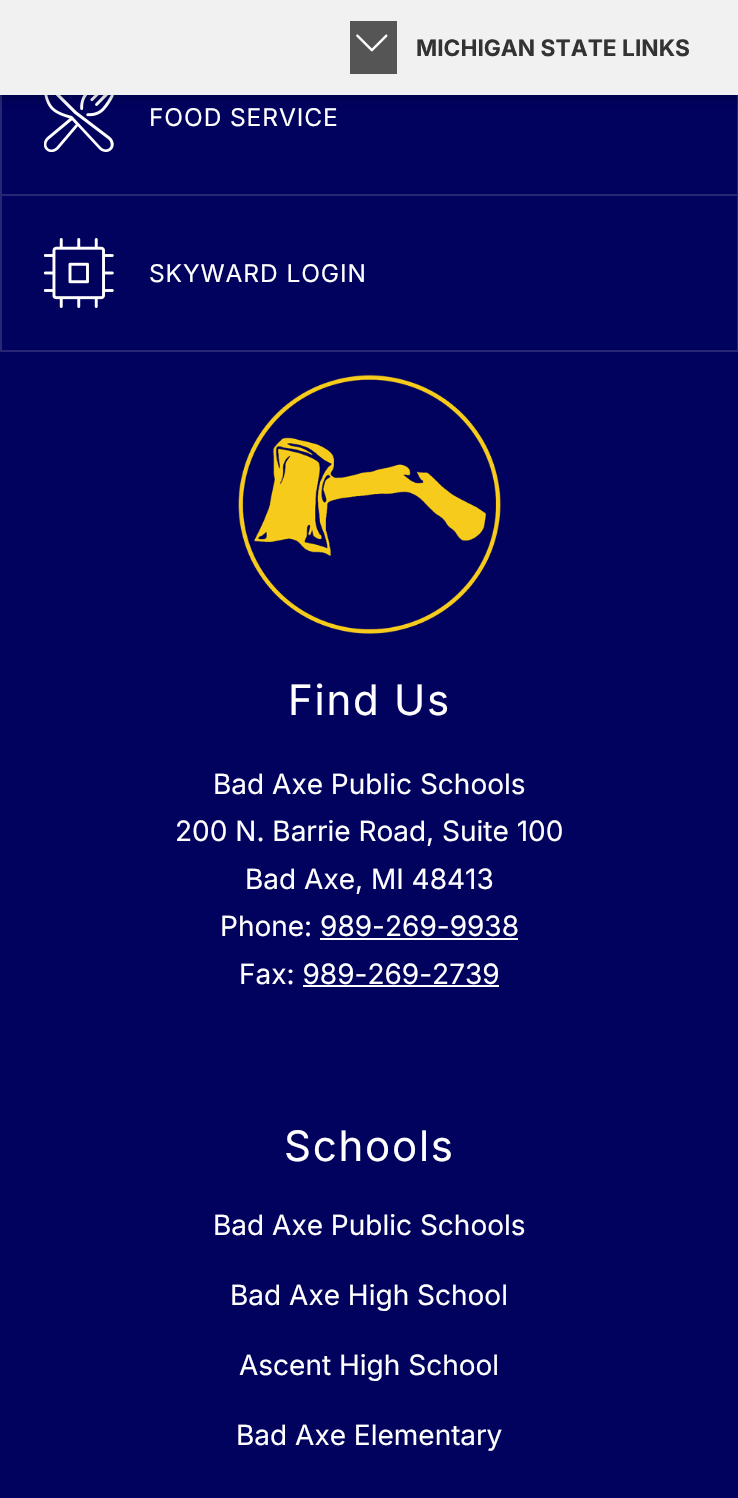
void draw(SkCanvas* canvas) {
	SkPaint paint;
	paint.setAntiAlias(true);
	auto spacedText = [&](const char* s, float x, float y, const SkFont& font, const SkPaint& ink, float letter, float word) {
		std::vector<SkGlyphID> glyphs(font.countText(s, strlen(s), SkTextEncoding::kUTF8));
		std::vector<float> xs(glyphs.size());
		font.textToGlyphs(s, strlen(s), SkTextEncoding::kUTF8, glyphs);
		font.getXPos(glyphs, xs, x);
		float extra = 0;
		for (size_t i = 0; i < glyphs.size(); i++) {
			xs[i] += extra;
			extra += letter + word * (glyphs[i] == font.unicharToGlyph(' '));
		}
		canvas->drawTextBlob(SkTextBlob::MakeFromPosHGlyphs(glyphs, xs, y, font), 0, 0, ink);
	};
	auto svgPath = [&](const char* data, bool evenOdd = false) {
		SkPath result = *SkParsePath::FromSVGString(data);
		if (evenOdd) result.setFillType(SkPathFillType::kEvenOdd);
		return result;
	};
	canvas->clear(0xff01015e);
	paint.setColor(0xff272776);
	canvas->drawPath(svgPath("M738 40V196L737 194V40Z"), paint);
	paint.setColor(0x26ffffff);
	canvas->drawPath(svgPath("M738 196H0L2 194H737Z"), paint);
	canvas->drawPath(svgPath("M0 196V40H2V194Z"), paint);
	canvas->drawImageRect(SkImages::DeferredFromEncodedData(SkData::MakeFromFileName("img2.png")), SkRect::MakeXYWH(44, 95, 70, 57), SkSamplingOptions());
	paint.setColor(0x66000000);
	paint.setMaskFilter(SkMaskFilter::MakeBlur(kNormal_SkBlurStyle, 6));
	canvas->drawRect(SkRect::MakeXYWH(-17, 0, 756, 95), paint);
	paint.setMaskFilter(nullptr);
	paint.setColor(0xfff1f1f1);
	canvas->drawRect(SkRect::MakeXYWH(0, 0, 738, 95), paint);
	paint.setColor(0xff555555);
	canvas->drawRect(SkRect::MakeXYWH(350, 21, 47, 53), paint);
	canvas->drawImageRect(SkImages::DeferredFromEncodedData(SkData::MakeFromFileName("img1.png")), SkRect::MakeXYWH(356, 34, 32, 18), SkSamplingOptions());
	SkFont f1(fontMgr->matchFamilyStyle("Inter", SkFontStyle::Bold()), 22.75);
	f1.setSubpixel(true);
	paint.setColor(0xff333333);
	canvas->drawString("MICHIGAN STATE LINKS", 416, 56, f1, paint);
	SkFont f2(fontMgr->matchFamilyStyle("Inter", SkFontStyle::Normal()), 24.5);
	f2.setSubpixel(true);
	paint.setColor(0xffffffff);
	spacedText("FOOD SERVICE", 149, 126, f2, paint, 0.9, 0);
	paint.setColor(0xff272776);
	canvas->drawPath(svgPath("M738 196V352L737 350V196Z"), paint);
	paint.setColor(0x26ffffff);
	canvas->drawPath(svgPath("M738 352H0L2 350H737Z"), paint);
	canvas->drawPath(svgPath("M0 352V196H2V350Z"), paint);
	canvas->drawImageRect(SkImages::DeferredFromEncodedData(SkData::MakeFromFileName("img3.png")), SkRect::MakeXYWH(44, 238, 70, 70), SkSamplingOptions());
	paint.setColor(0xffffffff);
	spacedText("SKYWARD LOGIN", 149, 282, f2, paint, 0.9, 0);
	canvas->drawImageRect(SkImages::DeferredFromEncodedData(SkData::MakeFromFileName("img4.png")), SkRect::MakeXYWH(238, 374, 263, 260), SkSamplingOptions());
	SkFont f3(fontMgr->matchFamilyStyle("Inter", SkFontStyle::Normal()), 42);
	f3.setSubpixel(true);
	spacedText("Find Us", 288, 715, f3, paint, 1.75, 0);
	SkFont f4(fontMgr->matchFamilyStyle("Inter", SkFontStyle::Normal()), 28);
	f4.setSubpixel(true);
	canvas->drawString("Bad Axe Public Schools", 213, 794, f4, paint);
	canvas->drawString("200 N. Barrie Road, Suite 100", 175, 841, f4, paint);
	canvas->drawString("Bad Axe, MI 48413", 245, 889, f4, paint);
	canvas->drawString("Phone: 989-269-9938", 220, 936, f4, paint);
	canvas->drawRect(SkRect::MakeXYWH(320, 938, 198, 2), paint);
	canvas->drawString("Fax: 989-269-2739", 239, 984, f4, paint);
	canvas->drawRect(SkRect::MakeXYWH(303, 985, 196, 2), paint);
	spacedText("Schools", 284, 1161, f3, paint, 1.75, 0);
	canvas->drawString("Bad Axe Public Schools", 213, 1235, f4, paint);
	canvas->drawString("Bad Axe High School", 230, 1305, f4, paint);
	canvas->drawString("Ascent High School", 239, 1375, f4, paint);
	canvas->drawString("Bad Axe Elementary", 236, 1445, f4, paint);
}
